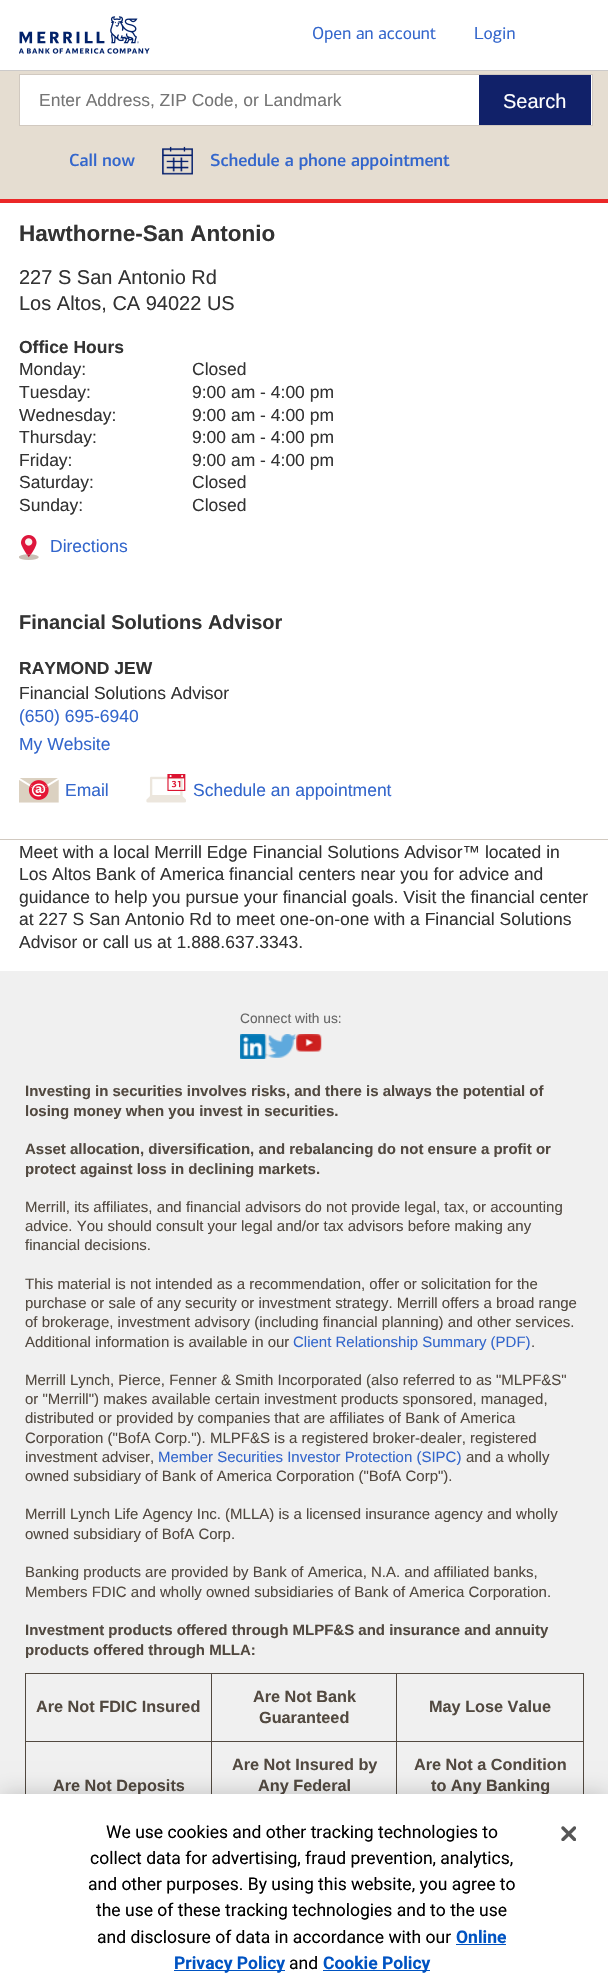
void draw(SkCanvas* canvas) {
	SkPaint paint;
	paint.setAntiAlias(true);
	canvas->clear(0xffffffff);
	paint.setColor(0xffcccaca);
	canvas->drawRect(SkRect::MakeXYWH(0, 70, 608, 1), paint);
	canvas->drawImageRect(SkImages::DeferredFromEncodedData(SkData::MakeFromFileName("img1.png")), SkRect::MakeXYWH(19, 16, 131, 38), SkSamplingOptions());
	SkFont f1(fontMgr->matchFamilyStyle("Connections", SkFontStyle::Normal()), 17.5);
	f1.setSubpixel(true);
	paint.setColor(0xff3366cc);
	canvas->drawString("Open an account", 312, 39, f1, paint);
	canvas->drawString("Login", 474, 39, f1, paint);
	paint.setColor(0xffe5ddd1);
	canvas->drawRect(SkRect::MakeXYWH(0, 71, 608, 128), paint);
	paint.setColor(0xffffffff);
	canvas->drawRect(SkRect::MakeXYWH(19.5, 74.5, 573, 51), paint);
	paint.setStroke(true);
	paint.setStrokeWidth(1);
	paint.setColor(0xffd1c9c0);
	canvas->drawRect(SkRect::MakeXYWH(19.5, 74.5, 573, 51), paint);
	SkFont f2(fontMgr->matchFamilyStyle("Liberation Sans", SkFontStyle::Normal()), 17.5);
	f2.setSubpixel(true);
	paint.setStroke(false);
	paint.setColor(0xff757575);
	canvas->drawString("Enter Address, ZIP Code, or Landmark", 39, 106, f2, paint);
	paint.setColor(0xff112169);
	canvas->drawRect(SkRect::MakeXYWH(479, 75, 112, 50), paint);
	SkFont f3(fontMgr->matchFamilyStyle("Liberation Sans", SkFontStyle::Normal()), 20);
	f3.setSubpixel(true);
	paint.setColor(0xffffffff);
	canvas->drawString("Search", 503, 108, f3, paint);
	SkFont f4(fontMgr->matchFamilyStyle("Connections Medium", SkFontStyle(500, SkFontStyle::kNormal_Width, SkFontStyle::kUpright_Slant)), 17.5);
	f4.setSubpixel(true);
	paint.setColor(0xff3366cc);
	canvas->drawString("Call now", 69, 166, f4, paint);
	canvas->drawImageRect(SkImages::DeferredFromEncodedData(SkData::MakeFromFileName("img2.png")), SkRect::MakeXYWH(162, 146, 31, 29), SkSamplingOptions());
	canvas->drawString("Schedule a phone appointment", 210, 166, f4, paint);
	paint.setColor(0xffeb2828);
	canvas->drawRect(SkRect::MakeXYWH(0, 199, 608, 4), paint);
	paint.setColor(0xffd1c9c0);
	canvas->drawRect(SkRect::MakeXYWH(0, 839, 608, 1), paint);
	SkFont f5(fontMgr->matchFamilyStyle("Liberation Sans", SkFontStyle::Bold()), 22.5);
	f5.setSubpixel(true);
	paint.setColor(0xff333333);
	canvas->drawString("Hawthorne-San Antonio", 19, 241, f5, paint);
	canvas->drawString("227 S San Antonio Rd", 19, 284, f3, paint);
	canvas->drawString("Los Altos, CA 94022 US", 19, 310, f3, paint);
	SkFont f6(fontMgr->matchFamilyStyle("Liberation Sans", SkFontStyle::Bold()), 17.5);
	f6.setSubpixel(true);
	canvas->drawString("Office Hours", 19, 353, f6, paint);
	canvas->drawString("Monday:", 19, 375, f2, paint);
	canvas->drawString("Closed", 192, 375, f2, paint);
	canvas->drawString("Tuesday:", 19, 398, f2, paint);
	canvas->drawString("9:00 am - 4:00 pm", 192, 398, f2, paint);
	canvas->drawString("Wednesday:", 19, 421, f2, paint);
	canvas->drawString("9:00 am - 4:00 pm", 192, 421, f2, paint);
	canvas->drawString("Thursday:", 19, 443, f2, paint);
	canvas->drawString("9:00 am - 4:00 pm", 192, 443, f2, paint);
	canvas->drawString("Friday:", 19, 466, f2, paint);
	canvas->drawString("9:00 am - 4:00 pm", 192, 466, f2, paint);
	canvas->drawString("Saturday:", 19, 488, f2, paint);
	canvas->drawString("Closed", 192, 488, f2, paint);
	canvas->drawString("Sunday:", 19, 511, f2, paint);
	canvas->drawString("Closed", 192, 511, f2, paint);
	canvas->drawImageRect(SkImages::DeferredFromEncodedData(SkData::MakeFromFileName("img3.png")), SkRect::MakeXYWH(19, 535, 20, 25), SkSamplingOptions());
	paint.setColor(0xff3366cc);
	canvas->drawString("Directions", 50, 552, f2, paint);
	SkFont f7(fontMgr->matchFamilyStyle("Liberation Sans", SkFontStyle::Bold()), 20);
	f7.setSubpixel(true);
	paint.setColor(0xff333333);
	canvas->drawString("Financial Solutions Advisor", 19, 629, f7, paint);
	canvas->drawString("RAYMOND JEW", 19, 674, f6, paint);
	canvas->drawString("Financial Solutions Advisor", 19, 699, f2, paint);
	paint.setColor(0xff3366cc);
	canvas->drawString("(650) 695-6940", 19, 722, f2, paint);
	canvas->drawString("My Website", 19, 750, f2, paint);
	canvas->drawImageRect(SkImages::DeferredFromEncodedData(SkData::MakeFromFileName("img4.png")), SkRect::MakeXYWH(19, 778, 40, 25), SkSamplingOptions());
	canvas->drawString("Email", 65, 796, f2, paint);
	canvas->drawImageRect(SkImages::DeferredFromEncodedData(SkData::MakeFromFileName("img5.png")), SkRect::MakeXYWH(146, 774, 40, 29), SkSamplingOptions());
	canvas->drawString("Schedule an appointment", 193, 796, f2, paint);
	paint.setColor(0xff333333);
	canvas->drawString("Meet with a local Merrill Edge Financial Solutions Advisor™ located in", 19, 858, f2, paint);
	canvas->drawString("Los Altos Bank of America financial centers near you for advice and", 19, 880, f2, paint);
	canvas->drawString("guidance to help you pursue your financial goals. Visit the financial center", 19, 903, f2, paint);
	canvas->drawString("at 227 S San Antonio Rd to meet one-on-one with a Financial Solutions", 19, 925, f2, paint);
	canvas->drawString("Advisor or call us at 1.888.637.3343.", 19, 948, f2, paint);
	paint.setColor(0xfff0f0f0);
	canvas->drawRect(SkRect::MakeXYWH(0, 971, 608, 823), paint);
	SkFont f8(fontMgr->matchFamilyStyle("Liberation Sans", SkFontStyle::Normal()), 13.75);
	f8.setSubpixel(true);
	paint.setColor(0xff666666);
	canvas->drawString("Connect with us:", 240, 1023, f8, paint);
	canvas->drawImageRect(SkImages::DeferredFromEncodedData(SkData::MakeFromFileName("img6.png")), SkRect::MakeXYWH(240, 1034, 28, 25), SkSamplingOptions());
	canvas->drawImageRect(SkImages::DeferredFromEncodedData(SkData::MakeFromFileName("img7.png")), SkRect::MakeXYWH(267, 1034, 30, 24), SkSamplingOptions());
	canvas->drawImageRect(SkImages::DeferredFromEncodedData(SkData::MakeFromFileName("img8.png")), SkRect::MakeXYWH(296, 1034, 26, 18), SkSamplingOptions());
	SkFont f9(fontMgr->matchFamilyStyle("Liberation Sans", SkFontStyle::Bold()), 15);
	f9.setSubpixel(true);
	paint.setColor(0xff524940);
	canvas->drawString("Investing in securities involves risks, and there is always the potential of", 25, 1096, f9, paint);
	canvas->drawString("losing money when you invest in securities.", 25, 1116, f9, paint);
	canvas->drawString("Asset allocation, diversification, and rebalancing do not ensure a profit or", 25, 1154, f9, paint);
	canvas->drawString("protect against loss in declining markets.", 25, 1174, f9, paint);
	SkFont f10(fontMgr->matchFamilyStyle("Liberation Sans", SkFontStyle::Normal()), 15);
	f10.setSubpixel(true);
	canvas->drawString("Merrill, its affiliates, and financial advisors do not provide legal, tax, or accounting", 25, 1212, f10, paint);
	canvas->drawString("advice. You should consult your legal and/or tax advisors before making any", 25, 1231, f10, paint);
	canvas->drawString("financial decisions.", 25, 1250, f10, paint);
	canvas->drawString("This material is not intended as a recommendation, offer or solicitation for the", 25, 1289, f10, paint);
	canvas->drawString("purchase or sale of any security or investment strategy. Merrill offers a broad range", 25, 1308, f10, paint);
	canvas->drawString("of brokerage, investment advisory (including financial planning) and other services.", 25, 1327, f10, paint);
	canvas->drawString("Additional information is available in our", 25, 1347, f10, paint);
	paint.setColor(0xff3366cc);
	canvas->drawString("Client Relationship Summary (PDF)", 293, 1347, f10, paint);
	paint.setColor(0xff524940);
	canvas->drawString(".", 531, 1347, f10, paint);
	canvas->drawString("Merrill Lynch, Pierce, Fenner & Smith Incorporated (also referred to as \"MLPF&S\"", 25, 1385, f10, paint);
	canvas->drawString("or \"Merrill\") makes available certain investment products sponsored, managed,", 25, 1404, f10, paint);
	canvas->drawString("distributed or provided by companies that are affiliates of Bank of America", 25, 1423, f10, paint);
	canvas->drawString("Corporation (\"BofA Corp.\"). MLPF&S is a registered broker-dealer, registered", 25, 1443, f10, paint);
	canvas->drawString("investment adviser,", 25, 1462, f10, paint);
	paint.setColor(0xff3366cc);
	canvas->drawString("Member Securities Investor Protection (SIPC)", 158, 1462, f10, paint);
	paint.setColor(0xff524940);
	canvas->drawString("and a wholly", 466, 1462, f10, paint);
	canvas->drawString("owned subsidiary of Bank of America Corporation (\"BofA Corp\").", 25, 1481, f10, paint);
	canvas->drawString("Merrill Lynch Life Agency Inc. (MLLA) is a licensed insurance agency and wholly", 25, 1519, f10, paint);
	canvas->drawString("owned subsidiary of BofA Corp.", 25, 1539, f10, paint);
	canvas->drawString("Banking products are provided by Bank of America, N.A. and affiliated banks,", 25, 1577, f10, paint);
	canvas->drawString("Members FDIC and wholly owned subsidiaries of Bank of America Corporation.", 25, 1597, f10, paint);
	canvas->drawString("Investment products offered through MLPF&S and insurance and annuity", 25, 1635, f9, paint);
	canvas->drawString("products offered through MLLA:", 25, 1655, f9, paint);
	canvas->drawRect(SkRect::MakeXYWH(396, 1673, 188, 1), paint);
	canvas->drawRect(SkRect::MakeXYWH(396, 1741, 188, 1), paint);
	canvas->drawRect(SkRect::MakeXYWH(396, 1741, 1, 53), paint);
	canvas->drawRect(SkRect::MakeXYWH(211, 1741, 187, 1), paint);
	canvas->drawRect(SkRect::MakeXYWH(396, 1673, 1, 70), paint);
	canvas->drawRect(SkRect::MakeXYWH(211, 1673, 187, 1), paint);
	canvas->drawRect(SkRect::MakeXYWH(211, 1741, 1, 53), paint);
	canvas->drawRect(SkRect::MakeXYWH(25, 1741, 188, 1), paint);
	canvas->drawRect(SkRect::MakeXYWH(211, 1673, 1, 70), paint);
	canvas->drawRect(SkRect::MakeXYWH(25, 1673, 188, 1), paint);
	canvas->drawRect(SkRect::MakeXYWH(25, 1741, 1, 53), paint);
	canvas->drawRect(SkRect::MakeXYWH(25, 1673, 1, 70), paint);
	SkFont f11(fontMgr->matchFamilyStyle("Liberation Sans", SkFontStyle::Bold()), 16.25);
	f11.setSubpixel(true);
	canvas->drawString("Are Not FDIC Insured", 36, 1712, f11, paint);
	canvas->drawString("Are Not Bank", 253, 1702, f11, paint);
	canvas->drawString("Guaranteed", 259, 1723, f11, paint);
	canvas->drawRect(SkRect::MakeXYWH(583, 1741, 1, 53), paint);
	canvas->drawRect(SkRect::MakeXYWH(583, 1673, 1, 70), paint);
	canvas->drawString("May Lose Value", 429, 1712, f11, paint);
	canvas->drawString("Are Not Deposits", 53, 1791, f11, paint);
	canvas->drawString("Are Not Insured by", 232, 1770, f11, paint);
	canvas->drawString("Any Federal", 258, 1791, f11, paint);
	canvas->drawString("Are Not a Condition", 414, 1770, f11, paint);
	canvas->drawString("to Any Banking", 431, 1791, f11, paint);
	paint.setColor(0x33000000);
	paint.setMaskFilter(SkMaskFilter::MakeBlur(kNormal_SkBlurStyle, 11));
	canvas->drawRect(SkRect::MakeXYWH(0, 1794, 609, 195), paint);
	paint.setMaskFilter(nullptr);
	paint.setColor(0xffffffff);
	canvas->drawRect(SkRect::MakeXYWH(0, 1794, 608, 194), paint);
	SkFont f12(fontMgr->matchFamilyStyle("Roboto", SkFontStyle::Normal()), 17.5);
	f12.setSubpixel(true);
	paint.setColor(0xff000000);
	canvas->drawString("We use cookies and other tracking technologies to", 106, 1838, f12, paint);
	canvas->drawString("collect data for advertising, fraud prevention, analytics,", 90, 1864, f12, paint);
	canvas->drawString("and other purposes. By using this website, you agree to", 88, 1890, f12, paint);
	canvas->drawString("the use of these tracking technologies and to the use", 96, 1916, f12, paint);
	canvas->drawString("and disclosure of data in accordance with our", 97, 1943, f12, paint);
	SkFont f13(fontMgr->matchFamilyStyle("Roboto", SkFontStyle::Bold()), 17.5);
	f13.setSubpixel(true);
	paint.setColor(0xff0053c2);
	canvas->drawString("Online", 456, 1943, f13, paint);
	canvas->drawRect(SkRect::MakeXYWH(456, 1944, 50, 1), paint);
	canvas->drawRect(SkRect::MakeXYWH(174, 1970, 111, 1), paint);
	canvas->drawString("Privacy Policy", 174, 1969, f13, paint);
	paint.setColor(0xff000000);
	canvas->drawString("and", 289, 1969, f12, paint);
	paint.setColor(0xff0053c2);
	canvas->drawRect(SkRect::MakeXYWH(323, 1970, 107, 1), paint);
	canvas->drawString("Cookie Policy", 323, 1969, f13, paint);
	canvas->drawImageRect(SkImages::DeferredFromEncodedData(SkData::MakeFromFileName("img9.png")), SkRect::MakeXYWH(561, 1826, 15, 15), SkSamplingOptions());
}
